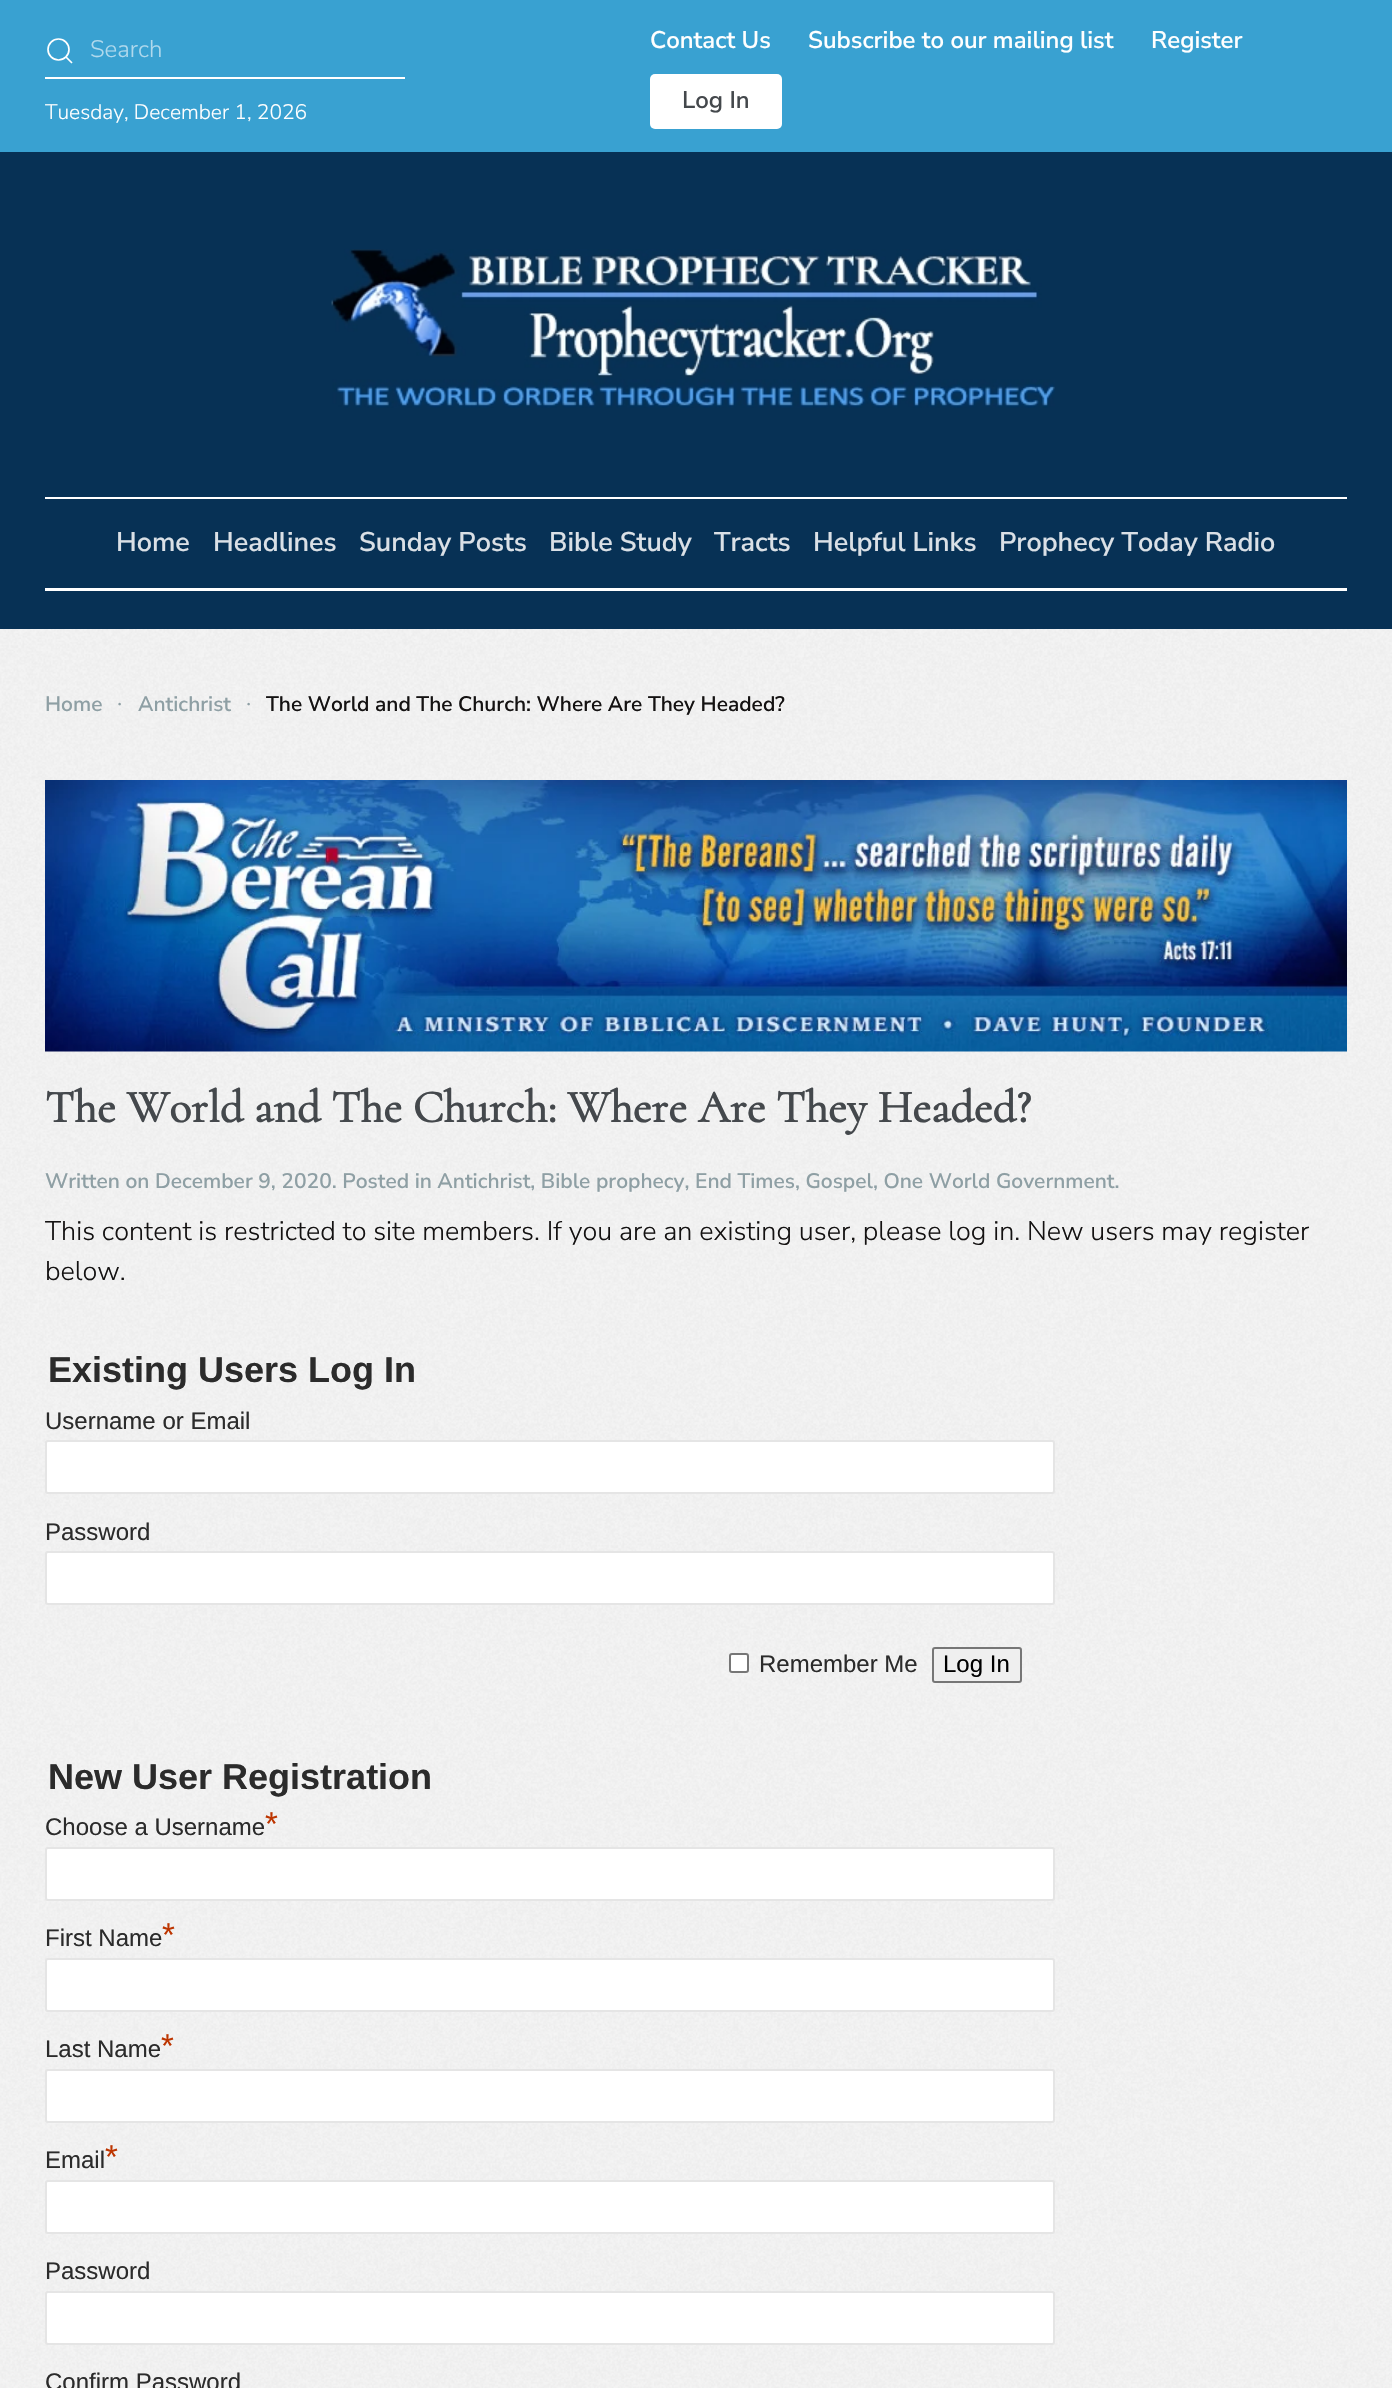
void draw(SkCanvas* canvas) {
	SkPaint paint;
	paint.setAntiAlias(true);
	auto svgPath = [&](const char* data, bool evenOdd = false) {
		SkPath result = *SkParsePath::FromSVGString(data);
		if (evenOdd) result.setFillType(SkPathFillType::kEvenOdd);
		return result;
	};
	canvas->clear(0xfff5f5f5);
	paint.setColor(0xff39a1d1);
	canvas->drawRect(SkRect::MakeXYWH(0, 0, 1392, 152), paint);
	paint.setStroke(true);
	paint.setStrokeWidth(1.7);
	paint.setColor(0xffffffff);
	canvas->drawCircle(58.5, 49.5, 10.5, paint);
	canvas->drawPath(svgPath("M66 57L72 63Z"), paint);
	paint.setStroke(false);
	canvas->drawRect(SkRect::MakeXYWH(45, 77, 360, 2), paint);
	SkFont f1(fontMgr->matchFamilyStyle("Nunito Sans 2", SkFontStyle(200, SkFontStyle::kNormal_Width, SkFontStyle::kUpright_Slant)), 24);
	f1.setSubpixel(true);
	paint.setColor(0xffb0d9ed);
	canvas->drawString("Search", 90, 57, f1, paint);
	SkFont f2(fontMgr->matchFamilyStyle("Nunito Sans 2", SkFontStyle(200, SkFontStyle::kNormal_Width, SkFontStyle::kUpright_Slant)), 21);
	f2.setSubpixel(true);
	paint.setColor(0xffffffff);
	canvas->drawString("Tuesday, December 1, 2026", 45, 119, f2, paint);
	SkFont f3(fontMgr->matchFamilyStyle("Nunito Sans", SkFontStyle(200, SkFontStyle::kNormal_Width, SkFontStyle::kUpright_Slant)), 24);
	f3.setSubpixel(true);
	canvas->drawString("Contact Us", 650, 48, f3, paint);
	canvas->drawString("Subscribe to our mailing list", 808, 48, f3, paint);
	canvas->drawString("Register", 1151, 48, f3, paint);
	canvas->drawRoundRect(SkRect::MakeXYWH(650, 74, 132, 55), 5, 5, paint);
	paint.setColor(0xff44484c);
	canvas->drawString("Log In", 682, 108, f3, paint);
	paint.setColor(0xff073155);
	canvas->drawRect(SkRect::MakeXYWH(0, 152, 1392, 477), paint);
	canvas->drawImageRect(SkImages::DeferredFromEncodedData(SkData::MakeFromFileName("img1.png")), SkRect::MakeXYWH(331, 249, 724, 159), SkSamplingOptions());
	paint.setColor(0xffffffff);
	canvas->drawRect(SkRect::MakeXYWH(45, 497, 1302, 2), paint);
	canvas->drawRect(SkRect::MakeXYWH(45, 588, 1302, 3), paint);
	SkFont f4(fontMgr->matchFamilyStyle("Nunito Sans", SkFontStyle(200, SkFontStyle::kNormal_Width, SkFontStyle::kUpright_Slant)), 27);
	f4.setSubpixel(true);
	paint.setColor(0xffdae0e6);
	canvas->drawString("Home", 116, 551, f4, paint);
	canvas->drawString("Headlines", 213, 551, f4, paint);
	canvas->drawString("Sunday Posts", 359, 551, f4, paint);
	canvas->drawString("Bible Study", 549, 551, f4, paint);
	canvas->drawString("Tracts", 714, 551, f4, paint);
	canvas->drawString("Helpful Links", 813, 551, f4, paint);
	canvas->drawString("Prophecy Today Radio", 999, 551, f4, paint);
	canvas->drawImageRect(SkImages::DeferredFromEncodedData(SkData::MakeFromFileName("img2.png")), SkRect::MakeXYWH(0, 629, 1392, 1759), SkSamplingOptions());
	SkFont f5(fontMgr->matchFamilyStyle("Nunito Sans", SkFontStyle(200, SkFontStyle::kNormal_Width, SkFontStyle::kUpright_Slant)), 21);
	f5.setSubpixel(true);
	paint.setColor(0xff8e9fa4);
	canvas->drawString("Home", 45, 711, f5, paint);
	SkFont f6(fontMgr->matchFamilyStyle("Liberation Serif", SkFontStyle::Normal()), 21);
	f6.setSubpixel(true);
	canvas->drawString("∙", 117, 711, f6, paint);
	canvas->drawString("Antichrist", 138, 711, f5, paint);
	canvas->drawString("∙", 246, 711, f6, paint);
	paint.setColor(0xff141212);
	canvas->drawString("The World and The Church: Where Are They Headed?", 266, 711, f5, paint);
	canvas->drawImageRect(SkImages::DeferredFromEncodedData(SkData::MakeFromFileName("img3.png")), SkRect::MakeXYWH(45, 780, 1302, 272), SkSamplingOptions());
	SkFont f7(fontMgr->matchFamilyStyle("Cormorant", SkFontStyle::Bold()), 45.9);
	f7.setSubpixel(true);
	paint.setColor(0xff44484c);
	canvas->drawString("The World and The Church: Where Are They Headed?", 45, 1122, f7, paint);
	paint.setColor(0xff8e9fa4);
	canvas->drawString("Written on December 9, 2020. Posted in Antichrist, Bible prophecy, End Times, Gospel, One World Government.", 45, 1188, f5, paint);
	SkFont f8(fontMgr->matchFamilyStyle("Nunito Sans 2", SkFontStyle(200, SkFontStyle::kNormal_Width, SkFontStyle::kUpright_Slant)), 27);
	f8.setSubpixel(true);
	paint.setColor(0xff141212);
	canvas->drawString("This content is restricted to site members. If you are an existing user, please log in. New users may register", 45, 1240, f8, paint);
	canvas->drawString("below.", 45, 1280, f8, paint);
	SkFont f9(fontMgr->matchFamilyStyle("Liberation Sans", SkFontStyle::Bold()), 36);
	f9.setSubpixel(true);
	paint.setColor(0xff2b2b2b);
	canvas->drawString("Existing Users Log In", 48, 1382, f9, paint);
	SkFont f10(fontMgr->matchFamilyStyle("Liberation Sans", SkFontStyle::Normal()), 24);
	f10.setSubpixel(true);
	canvas->drawString("Username or Email", 45, 1429, f10, paint);
	paint.setColor(0xffffffff);
	canvas->drawRoundRect(SkRect::MakeXYWH(45, 1440, 1010, 54), 3, 3, paint);
	paint.setStroke(true);
	paint.setStrokeWidth(2);
	paint.setColor(0x1a000000);
	canvas->drawRoundRect(SkRect::MakeXYWH(46, 1441, 1008, 52), 2, 2, paint);
	paint.setStroke(false);
	paint.setColor(0xff2b2b2b);
	canvas->drawString("Password", 45, 1540, f10, paint);
	paint.setColor(0xffffffff);
	canvas->drawRoundRect(SkRect::MakeXYWH(45, 1551, 1010, 54), 3, 3, paint);
	paint.setStroke(true);
	paint.setColor(0x1a000000);
	canvas->drawRoundRect(SkRect::MakeXYWH(46, 1552, 1008, 52), 2, 2, paint);
	paint.setStroke(false);
	paint.setColor(0xffffffff);
	canvas->drawRoundRect(SkRect::MakeXYWH(730, 1654, 18, 18), 2, 2, paint);
	paint.setStroke(true);
	paint.setColor(0xff767676);
	canvas->drawRoundRect(SkRect::MakeXYWH(730, 1654, 18, 18), 2, 2, paint);
	paint.setStroke(false);
	paint.setColor(0xff2b2b2b);
	canvas->drawString("Remember Me", 759, 1672, f10, paint);
	paint.setColor(0xffefefef);
	canvas->drawRoundRect(SkRect::MakeXYWH(933, 1648, 88, 34), 2, 2, paint);
	paint.setStroke(true);
	paint.setColor(0xff767676);
	canvas->drawRoundRect(SkRect::MakeXYWH(933, 1648, 88, 34), 2, 2, paint);
	paint.setStroke(false);
	paint.setColor(0xff000000);
	canvas->drawString("Log In", 943, 1672, f10, paint);
	paint.setColor(0xff2b2b2b);
	canvas->drawString("New User Registration", 48, 1789, f9, paint);
	canvas->drawString("Choose a Username", 45, 1835, f10, paint);
	SkFont f11(fontMgr->matchFamilyStyle("Liberation Sans", SkFontStyle::Normal()), 33);
	f11.setSubpixel(true);
	paint.setColor(0xffbd3500);
	canvas->drawString("*", 265, 1835, f11, paint);
	paint.setColor(0xffffffff);
	canvas->drawRoundRect(SkRect::MakeXYWH(45, 1847, 1010, 54), 3, 3, paint);
	paint.setStroke(true);
	paint.setColor(0x1a000000);
	canvas->drawRoundRect(SkRect::MakeXYWH(46, 1848, 1008, 52), 2, 2, paint);
	paint.setStroke(false);
	paint.setColor(0xff2b2b2b);
	canvas->drawString("First Name", 45, 1946, f10, paint);
	paint.setColor(0xffbd3500);
	canvas->drawString("*", 162, 1946, f11, paint);
	paint.setColor(0xffffffff);
	canvas->drawRoundRect(SkRect::MakeXYWH(45, 1958, 1010, 54), 3, 3, paint);
	paint.setStroke(true);
	paint.setColor(0x1a000000);
	canvas->drawRoundRect(SkRect::MakeXYWH(46, 1959, 1008, 52), 2, 2, paint);
	paint.setStroke(false);
	paint.setColor(0xff2b2b2b);
	canvas->drawString("Last Name", 45, 2057, f10, paint);
	paint.setColor(0xffbd3500);
	canvas->drawString("*", 161, 2057, f11, paint);
	paint.setColor(0xffffffff);
	canvas->drawRoundRect(SkRect::MakeXYWH(45, 2069, 1010, 54), 3, 3, paint);
	paint.setStroke(true);
	paint.setColor(0x1a000000);
	canvas->drawRoundRect(SkRect::MakeXYWH(46, 2070, 1008, 52), 2, 2, paint);
	paint.setStroke(false);
	paint.setColor(0xff2b2b2b);
	canvas->drawString("Email", 45, 2168, f10, paint);
	paint.setColor(0xffbd3500);
	canvas->drawString("*", 105, 2168, f11, paint);
	paint.setColor(0xffffffff);
	canvas->drawRoundRect(SkRect::MakeXYWH(45, 2180, 1010, 54), 3, 3, paint);
	paint.setStroke(true);
	paint.setColor(0x1a000000);
	canvas->drawRoundRect(SkRect::MakeXYWH(46, 2181, 1008, 52), 2, 2, paint);
	paint.setStroke(false);
	paint.setColor(0xff2b2b2b);
	canvas->drawString("Password", 45, 2279, f10, paint);
	paint.setColor(0xffffffff);
	canvas->drawRoundRect(SkRect::MakeXYWH(45, 2291, 1010, 54), 3, 3, paint);
	paint.setStroke(true);
	paint.setColor(0x1a000000);
	canvas->drawRoundRect(SkRect::MakeXYWH(46, 2292, 1008, 52), 2, 2, paint);
	paint.setStroke(false);
	paint.setColor(0xff2b2b2b);
	canvas->drawString("Confirm Password", 45, 2390, f10, paint);
}
